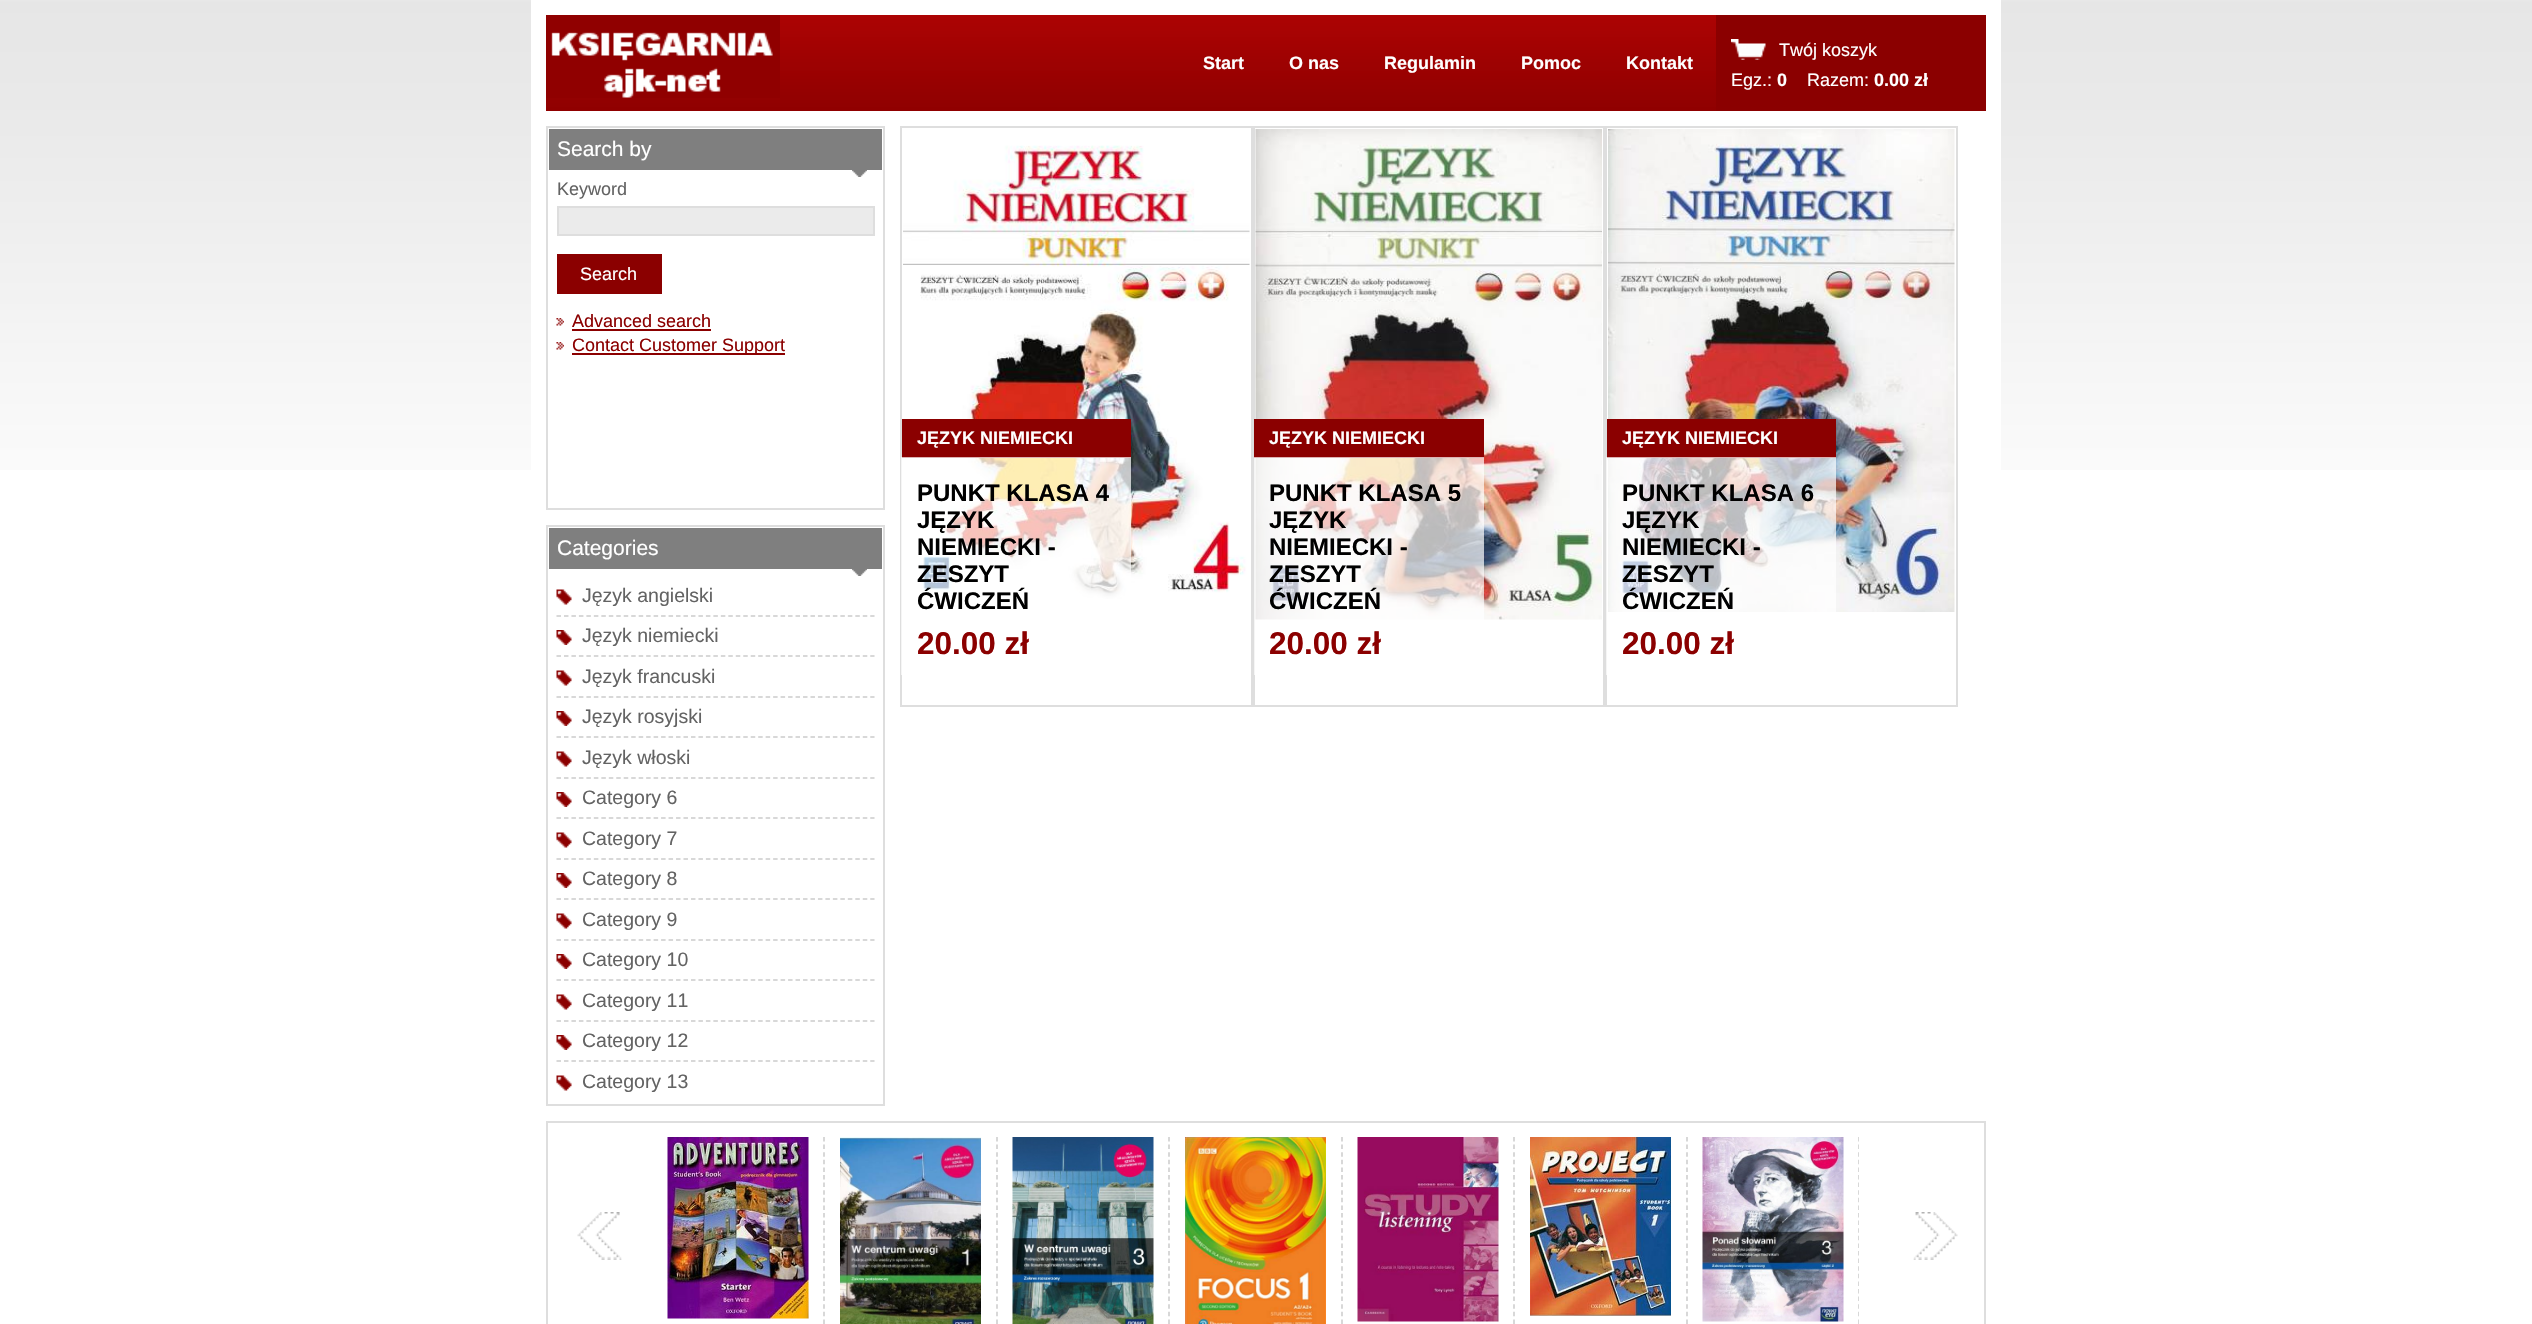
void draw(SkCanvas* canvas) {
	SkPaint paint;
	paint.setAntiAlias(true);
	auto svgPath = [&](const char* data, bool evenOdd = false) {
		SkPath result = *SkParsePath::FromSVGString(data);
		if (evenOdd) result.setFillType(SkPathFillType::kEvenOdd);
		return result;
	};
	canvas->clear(0xffffffff);
	canvas->drawImageRect(SkImages::DeferredFromEncodedData(SkData::MakeFromFileName("img1.png")), SkRect::MakeXYWH(0, 0, 2532, 470), SkSamplingOptions());
	paint.setColor(0xffffffff);
	canvas->drawRect(SkRect::MakeXYWH(531, 0, 1470, 470), paint);
	canvas->drawImageRect(SkImages::DeferredFromEncodedData(SkData::MakeFromFileName("img2.png")), SkRect::MakeXYWH(546, 15, 1170, 96), SkSamplingOptions());
	canvas->drawImageRect(SkImages::DeferredFromEncodedData(SkData::MakeFromFileName("img3.png")), SkRect::MakeXYWH(546, 15, 234, 83), SkSamplingOptions());
	SkFont f1(fontMgr->matchFamilyStyle("Liberation Sans", SkFontStyle::Bold()), 18);
	f1.setSubpixel(true);
	canvas->drawString("Start", 1203, 69, f1, paint);
	canvas->drawString("O nas", 1289, 69, f1, paint);
	canvas->drawString("Regulamin", 1384, 69, f1, paint);
	canvas->drawString("Pomoc", 1521, 69, f1, paint);
	canvas->drawString("Kontakt", 1626, 69, f1, paint);
	paint.setColor(0xff8b0000);
	canvas->drawRect(SkRect::MakeXYWH(1716, 15, 270, 96), paint);
	canvas->drawImageRect(SkImages::DeferredFromEncodedData(SkData::MakeFromFileName("img4.png")), SkRect::MakeXYWH(1731, 39, 35, 21), SkSamplingOptions());
	SkFont f2(fontMgr->matchFamilyStyle("Liberation Sans", SkFontStyle::Normal()), 18);
	f2.setSubpixel(true);
	paint.setColor(0xffffffff);
	canvas->drawString("Twój koszyk", 1779, 56, f2, paint);
	canvas->drawString("Egz.:", 1731, 86, f2, paint);
	canvas->drawString("0", 1777, 86, f1, paint);
	canvas->drawString("Razem:", 1807, 86, f2, paint);
	canvas->drawString("0.00 zł", 1874, 86, f1, paint);
	paint.setStroke(true);
	paint.setStrokeWidth(2);
	paint.setColor(0xffdedede);
	canvas->drawRect(SkRect::MakeXYWH(547, 127, 337, 382), paint);
	paint.setStroke(false);
	paint.setColor(0xff7f7f7f);
	canvas->drawRect(SkRect::MakeXYWH(549, 129, 333, 41), paint);
	SkFont f3(fontMgr->matchFamilyStyle("Liberation Sans", SkFontStyle::Normal()), 21);
	f3.setSubpixel(true);
	paint.setColor(0xffffffff);
	canvas->drawString("Search by", 557, 156, f3, paint);
	canvas->drawImageRect(SkImages::DeferredFromEncodedData(SkData::MakeFromFileName("img5.png")), SkRect::MakeXYWH(852, 170, 15, 7), SkSamplingOptions());
	paint.setColor(0xff636363);
	canvas->drawString("Keyword", 557, 195, f2, paint);
	paint.setColor(0xffebebeb);
	canvas->drawRect(SkRect::MakeXYWH(558, 207, 316, 28), paint);
	paint.setStroke(true);
	paint.setColor(0xffdedede);
	canvas->drawRect(SkRect::MakeXYWH(558, 207, 316, 28), paint);
	paint.setStroke(false);
	paint.setColor(0xff8b0000);
	canvas->drawRect(SkRect::MakeXYWH(557, 254, 105, 40), paint);
	paint.setColor(0xffffffff);
	canvas->drawString("Search", 580, 280, f2, paint);
	canvas->drawImageRect(SkImages::DeferredFromEncodedData(SkData::MakeFromFileName("img6.png")), SkRect::MakeXYWH(556, 318, 8, 8), SkSamplingOptions());
	paint.setColor(0xff8b0000);
	canvas->drawString("Advanced search", 572, 327, f2, paint);
	canvas->drawRect(SkRect::MakeXYWH(572, 329, 139, 2), paint);
	canvas->drawImageRect(SkImages::DeferredFromEncodedData(SkData::MakeFromFileName("img6.png")), SkRect::MakeXYWH(556, 342, 8, 8), SkSamplingOptions());
	canvas->drawRect(SkRect::MakeXYWH(572, 353, 213, 2), paint);
	canvas->drawString("Contact Customer Support", 572, 351, f2, paint);
	paint.setStroke(true);
	paint.setColor(0xffdedede);
	canvas->drawRect(SkRect::MakeXYWH(547, 526, 337, 579), paint);
	paint.setStroke(false);
	paint.setColor(0xff7f7f7f);
	canvas->drawRect(SkRect::MakeXYWH(549, 528, 333, 41), paint);
	paint.setColor(0xffffffff);
	canvas->drawString("Categories", 557, 555, f3, paint);
	canvas->drawImageRect(SkImages::DeferredFromEncodedData(SkData::MakeFromFileName("img5.png")), SkRect::MakeXYWH(852, 569, 15, 7), SkSamplingOptions());
	paint.setStroke(true);
	paint.setStrokeWidth(1.5);
	paint.setColor(0xffcccccc);
	paint.setPathEffect(SkDashPathEffect::Make({{4.5f, 2.97f}}, 0));
	canvas->drawPath(svgPath("M556.5 616H874.5"), paint);
	paint.setPathEffect(nullptr);
	canvas->drawImageRect(SkImages::DeferredFromEncodedData(SkData::MakeFromFileName("img7.png")), SkRect::MakeXYWH(556, 589, 16, 16), SkSamplingOptions());
	SkFont f4(fontMgr->matchFamilyStyle("Liberation Sans", SkFontStyle::Normal()), 19.5);
	f4.setSubpixel(true);
	paint.setStroke(false);
	paint.setColor(0xff636363);
	canvas->drawString("Język angielski", 582, 602, f4, paint);
	paint.setStroke(true);
	paint.setColor(0xffcccccc);
	paint.setPathEffect(SkDashPathEffect::Make({{4.5f, 2.97f}}, 0));
	canvas->drawPath(svgPath("M556.5 656H874.5"), paint);
	paint.setPathEffect(nullptr);
	canvas->drawImageRect(SkImages::DeferredFromEncodedData(SkData::MakeFromFileName("img8.png")), SkRect::MakeXYWH(556, 630, 16, 15), SkSamplingOptions());
	paint.setStroke(false);
	paint.setColor(0xff636363);
	canvas->drawString("Język niemiecki", 582, 642, f4, paint);
	paint.setStroke(true);
	paint.setColor(0xffcccccc);
	paint.setPathEffect(SkDashPathEffect::Make({{4.5f, 2.97f}}, 0));
	canvas->drawPath(svgPath("M556.5 697H874.5"), paint);
	paint.setPathEffect(nullptr);
	canvas->drawImageRect(SkImages::DeferredFromEncodedData(SkData::MakeFromFileName("img7.png")), SkRect::MakeXYWH(556, 670, 16, 16), SkSamplingOptions());
	paint.setStroke(false);
	paint.setColor(0xff636363);
	canvas->drawString("Język francuski", 582, 683, f4, paint);
	paint.setStroke(true);
	paint.setColor(0xffcccccc);
	paint.setPathEffect(SkDashPathEffect::Make({{4.5f, 2.97f}}, 0));
	canvas->drawPath(svgPath("M556.5 737H874.5"), paint);
	paint.setPathEffect(nullptr);
	canvas->drawImageRect(SkImages::DeferredFromEncodedData(SkData::MakeFromFileName("img8.png")), SkRect::MakeXYWH(556, 711, 16, 15), SkSamplingOptions());
	paint.setStroke(false);
	paint.setColor(0xff636363);
	canvas->drawString("Język rosyjski", 582, 723, f4, paint);
	paint.setStroke(true);
	paint.setColor(0xffcccccc);
	paint.setPathEffect(SkDashPathEffect::Make({{4.5f, 2.97f}}, 0));
	canvas->drawPath(svgPath("M556.5 778H874.5"), paint);
	paint.setPathEffect(nullptr);
	canvas->drawImageRect(SkImages::DeferredFromEncodedData(SkData::MakeFromFileName("img7.png")), SkRect::MakeXYWH(556, 751, 16, 16), SkSamplingOptions());
	paint.setStroke(false);
	paint.setColor(0xff636363);
	canvas->drawString("Język włoski", 582, 764, f4, paint);
	paint.setStroke(true);
	paint.setColor(0xffcccccc);
	paint.setPathEffect(SkDashPathEffect::Make({{4.5f, 2.97f}}, 0));
	canvas->drawPath(svgPath("M556.5 818H874.5"), paint);
	paint.setPathEffect(nullptr);
	canvas->drawImageRect(SkImages::DeferredFromEncodedData(SkData::MakeFromFileName("img8.png")), SkRect::MakeXYWH(556, 792, 16, 15), SkSamplingOptions());
	paint.setStroke(false);
	paint.setColor(0xff636363);
	canvas->drawString("Category 6", 582, 804, f4, paint);
	paint.setStroke(true);
	paint.setColor(0xffcccccc);
	paint.setPathEffect(SkDashPathEffect::Make({{4.5f, 2.97f}}, 0));
	canvas->drawPath(svgPath("M556.5 859H874.5"), paint);
	paint.setPathEffect(nullptr);
	canvas->drawImageRect(SkImages::DeferredFromEncodedData(SkData::MakeFromFileName("img7.png")), SkRect::MakeXYWH(556, 832, 16, 16), SkSamplingOptions());
	paint.setStroke(false);
	paint.setColor(0xff636363);
	canvas->drawString("Category 7", 582, 845, f4, paint);
	paint.setStroke(true);
	paint.setColor(0xffcccccc);
	paint.setPathEffect(SkDashPathEffect::Make({{4.5f, 2.97f}}, 0));
	canvas->drawPath(svgPath("M556.5 899H874.5"), paint);
	paint.setPathEffect(nullptr);
	canvas->drawImageRect(SkImages::DeferredFromEncodedData(SkData::MakeFromFileName("img8.png")), SkRect::MakeXYWH(556, 873, 16, 15), SkSamplingOptions());
	paint.setStroke(false);
	paint.setColor(0xff636363);
	canvas->drawString("Category 8", 582, 885, f4, paint);
	paint.setStroke(true);
	paint.setColor(0xffcccccc);
	paint.setPathEffect(SkDashPathEffect::Make({{4.5f, 2.97f}}, 0));
	canvas->drawPath(svgPath("M556.5 940H874.5"), paint);
	paint.setPathEffect(nullptr);
	canvas->drawImageRect(SkImages::DeferredFromEncodedData(SkData::MakeFromFileName("img7.png")), SkRect::MakeXYWH(556, 913, 16, 16), SkSamplingOptions());
	paint.setStroke(false);
	paint.setColor(0xff636363);
	canvas->drawString("Category 9", 582, 926, f4, paint);
	paint.setStroke(true);
	paint.setColor(0xffcccccc);
	paint.setPathEffect(SkDashPathEffect::Make({{4.5f, 2.97f}}, 0));
	canvas->drawPath(svgPath("M556.5 980H874.5"), paint);
	paint.setPathEffect(nullptr);
	canvas->drawImageRect(SkImages::DeferredFromEncodedData(SkData::MakeFromFileName("img8.png")), SkRect::MakeXYWH(556, 954, 16, 15), SkSamplingOptions());
	paint.setStroke(false);
	paint.setColor(0xff636363);
	canvas->drawString("Category 10", 582, 966, f4, paint);
	paint.setStroke(true);
	paint.setColor(0xffcccccc);
	paint.setPathEffect(SkDashPathEffect::Make({{4.5f, 2.97f}}, 0));
	canvas->drawPath(svgPath("M556.5 1021H874.5"), paint);
	paint.setPathEffect(nullptr);
	canvas->drawImageRect(SkImages::DeferredFromEncodedData(SkData::MakeFromFileName("img7.png")), SkRect::MakeXYWH(556, 994, 16, 16), SkSamplingOptions());
	paint.setStroke(false);
	paint.setColor(0xff636363);
	canvas->drawString("Category 11", 582, 1007, f4, paint);
	paint.setStroke(true);
	paint.setColor(0xffcccccc);
	paint.setPathEffect(SkDashPathEffect::Make({{4.5f, 2.97f}}, 0));
	canvas->drawPath(svgPath("M556.5 1061H874.5"), paint);
	paint.setPathEffect(nullptr);
	canvas->drawImageRect(SkImages::DeferredFromEncodedData(SkData::MakeFromFileName("img8.png")), SkRect::MakeXYWH(556, 1035, 16, 15), SkSamplingOptions());
	paint.setStroke(false);
	paint.setColor(0xff636363);
	canvas->drawString("Category 12", 582, 1047, f4, paint);
	canvas->drawImageRect(SkImages::DeferredFromEncodedData(SkData::MakeFromFileName("img7.png")), SkRect::MakeXYWH(556, 1075, 16, 16), SkSamplingOptions());
	canvas->drawString("Category 13", 582, 1088, f4, paint);
	paint.setStroke(true);
	paint.setStrokeWidth(2);
	paint.setColor(0xffdedede);
	canvas->drawRect(SkRect::MakeXYWH(901, 127, 351, 579), paint);
	canvas->drawImageRect(SkImages::DeferredFromEncodedData(SkData::MakeFromFileName("img9.png")), SkRect::MakeXYWH(903, 145, 347, 454), SkSamplingOptions());
	paint.setStroke(false);
	paint.setColor(0xff8b0000);
	canvas->drawRect(SkRect::MakeXYWH(902, 419, 229, 39), paint);
	paint.setColor(0xffffffff);
	canvas->drawString("JĘZYK NIEMIECKI", 917, 444, f1, paint);
	paint.setColor(0xb3ffffff);
	canvas->drawRect(SkRect::MakeXYWH(901, 457, 230, 218), paint);
	SkFont f5(fontMgr->matchFamilyStyle("Liberation Sans", SkFontStyle::Bold()), 24);
	f5.setSubpixel(true);
	paint.setColor(0xff000000);
	canvas->drawString("PUNKT KLASA 4", 917, 501, f5, paint);
	canvas->drawString("JĘZYK", 917, 528, f5, paint);
	canvas->drawString("NIEMIECKI -", 917, 555, f5, paint);
	canvas->drawString("ZESZYT", 917, 582, f5, paint);
	canvas->drawString("ĆWICZEŃ", 917, 609, f5, paint);
	SkFont f6(fontMgr->matchFamilyStyle("Liberation Sans", SkFontStyle::Bold()), 31.5);
	f6.setSubpixel(true);
	paint.setColor(0xff8b0000);
	canvas->drawString("20.00 zł", 917, 654, f6, paint);
	paint.setStroke(true);
	paint.setColor(0xffdedede);
	canvas->drawRect(SkRect::MakeXYWH(1254, 127, 350, 579), paint);
	canvas->drawImageRect(SkImages::DeferredFromEncodedData(SkData::MakeFromFileName("img10.png")), SkRect::MakeXYWH(1255, 129, 347, 491), SkSamplingOptions());
	paint.setStroke(false);
	paint.setColor(0xff8b0000);
	canvas->drawRect(SkRect::MakeXYWH(1254, 419, 230, 39), paint);
	paint.setColor(0xffffffff);
	canvas->drawString("JĘZYK NIEMIECKI", 1269, 444, f1, paint);
	paint.setColor(0xb3ffffff);
	canvas->drawRect(SkRect::MakeXYWH(1254, 457, 230, 218), paint);
	paint.setColor(0xff000000);
	canvas->drawString("PUNKT KLASA 5", 1269, 501, f5, paint);
	canvas->drawString("JĘZYK", 1269, 528, f5, paint);
	canvas->drawString("NIEMIECKI -", 1269, 555, f5, paint);
	canvas->drawString("ZESZYT", 1269, 582, f5, paint);
	canvas->drawString("ĆWICZEŃ", 1269, 609, f5, paint);
	paint.setColor(0xff8b0000);
	canvas->drawString("20.00 zł", 1269, 654, f6, paint);
	paint.setStroke(true);
	paint.setColor(0xffdedede);
	canvas->drawRect(SkRect::MakeXYWH(1606, 127, 351, 579), paint);
	canvas->drawImageRect(SkImages::DeferredFromEncodedData(SkData::MakeFromFileName("img11.png")), SkRect::MakeXYWH(1608, 129, 347, 483), SkSamplingOptions());
	paint.setStroke(false);
	paint.setColor(0xff8b0000);
	canvas->drawRect(SkRect::MakeXYWH(1607, 419, 229, 39), paint);
	paint.setColor(0xffffffff);
	canvas->drawString("JĘZYK NIEMIECKI", 1622, 444, f1, paint);
	paint.setColor(0xb3ffffff);
	canvas->drawRect(SkRect::MakeXYWH(1606, 457, 230, 218), paint);
	paint.setColor(0xff000000);
	canvas->drawString("PUNKT KLASA 6", 1622, 501, f5, paint);
	canvas->drawString("JĘZYK", 1622, 528, f5, paint);
	canvas->drawString("NIEMIECKI -", 1622, 555, f5, paint);
	canvas->drawString("ZESZYT", 1622, 582, f5, paint);
	canvas->drawString("ĆWICZEŃ", 1622, 609, f5, paint);
	paint.setColor(0xff8b0000);
	canvas->drawString("20.00 zł", 1622, 654, f6, paint);
	paint.setStroke(true);
	paint.setColor(0xffdedede);
	canvas->drawRect(SkRect::MakeXYWH(547, 1122, 1438, 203), paint);
	paint.setStrokeWidth(1.5);
	paint.setColor(0xffcccccc);
	paint.setPathEffect(SkDashPathEffect::Make({{4.5f, 3.1f}}, 0));
	canvas->drawPath(svgPath("M824 1137V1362"), paint);
	paint.setPathEffect(nullptr);
	canvas->drawImageRect(SkImages::DeferredFromEncodedData(SkData::MakeFromFileName("img12.png")), SkRect::MakeXYWH(667, 1137, 142, 182), SkSamplingOptions());
	paint.setPathEffect(SkDashPathEffect::Make({{4.5f, 3.1f}}, 0));
	canvas->drawPath(svgPath("M997 1137V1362"), paint);
	paint.setPathEffect(nullptr);
	canvas->drawImageRect(SkImages::DeferredFromEncodedData(SkData::MakeFromFileName("img13.png")), SkRect::MakeXYWH(840, 1137, 141, 187), SkSamplingOptions());
	paint.setPathEffect(SkDashPathEffect::Make({{4.5f, 3.1f}}, 0));
	canvas->drawPath(svgPath("M1169 1137V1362"), paint);
	paint.setPathEffect(nullptr);
	canvas->drawImageRect(SkImages::DeferredFromEncodedData(SkData::MakeFromFileName("img14.png")), SkRect::MakeXYWH(1012, 1137, 142, 187), SkSamplingOptions());
	paint.setPathEffect(SkDashPathEffect::Make({{4.5f, 3.1f}}, 0));
	canvas->drawPath(svgPath("M1342 1137V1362"), paint);
	paint.setPathEffect(nullptr);
	canvas->drawImageRect(SkImages::DeferredFromEncodedData(SkData::MakeFromFileName("img15.png")), SkRect::MakeXYWH(1185, 1137, 141, 187), SkSamplingOptions());
	paint.setPathEffect(SkDashPathEffect::Make({{4.5f, 3.1f}}, 0));
	canvas->drawPath(svgPath("M1514 1137V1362"), paint);
	paint.setPathEffect(nullptr);
	canvas->drawImageRect(SkImages::DeferredFromEncodedData(SkData::MakeFromFileName("img16.png")), SkRect::MakeXYWH(1357, 1137, 142, 185), SkSamplingOptions());
	paint.setPathEffect(SkDashPathEffect::Make({{4.5f, 3.1f}}, 0));
	canvas->drawPath(svgPath("M1687 1137V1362"), paint);
	paint.setPathEffect(nullptr);
	canvas->drawImageRect(SkImages::DeferredFromEncodedData(SkData::MakeFromFileName("img17.png")), SkRect::MakeXYWH(1530, 1137, 141, 179), SkSamplingOptions());
	canvas->save();
	canvas->clipRect(SkRect::MakeXYWH(653, 1137, 1206, 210));
	paint.setPathEffect(SkDashPathEffect::Make({{4.5f, 3.1f}}, 0));
	canvas->drawPath(svgPath("M1859 1137V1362"), paint);
	paint.setPathEffect(nullptr);
	canvas->restore();
	canvas->drawImageRect(SkImages::DeferredFromEncodedData(SkData::MakeFromFileName("img18.png")), SkRect::MakeXYWH(1702, 1137, 142, 185), SkSamplingOptions());
	canvas->drawImageRect(SkImages::DeferredFromEncodedData(SkData::MakeFromFileName("img19.png")), SkRect::MakeXYWH(577, 1212, 45, 48), SkSamplingOptions());
	canvas->drawImageRect(SkImages::DeferredFromEncodedData(SkData::MakeFromFileName("img20.png")), SkRect::MakeXYWH(1913, 1212, 45, 48), SkSamplingOptions());
}
